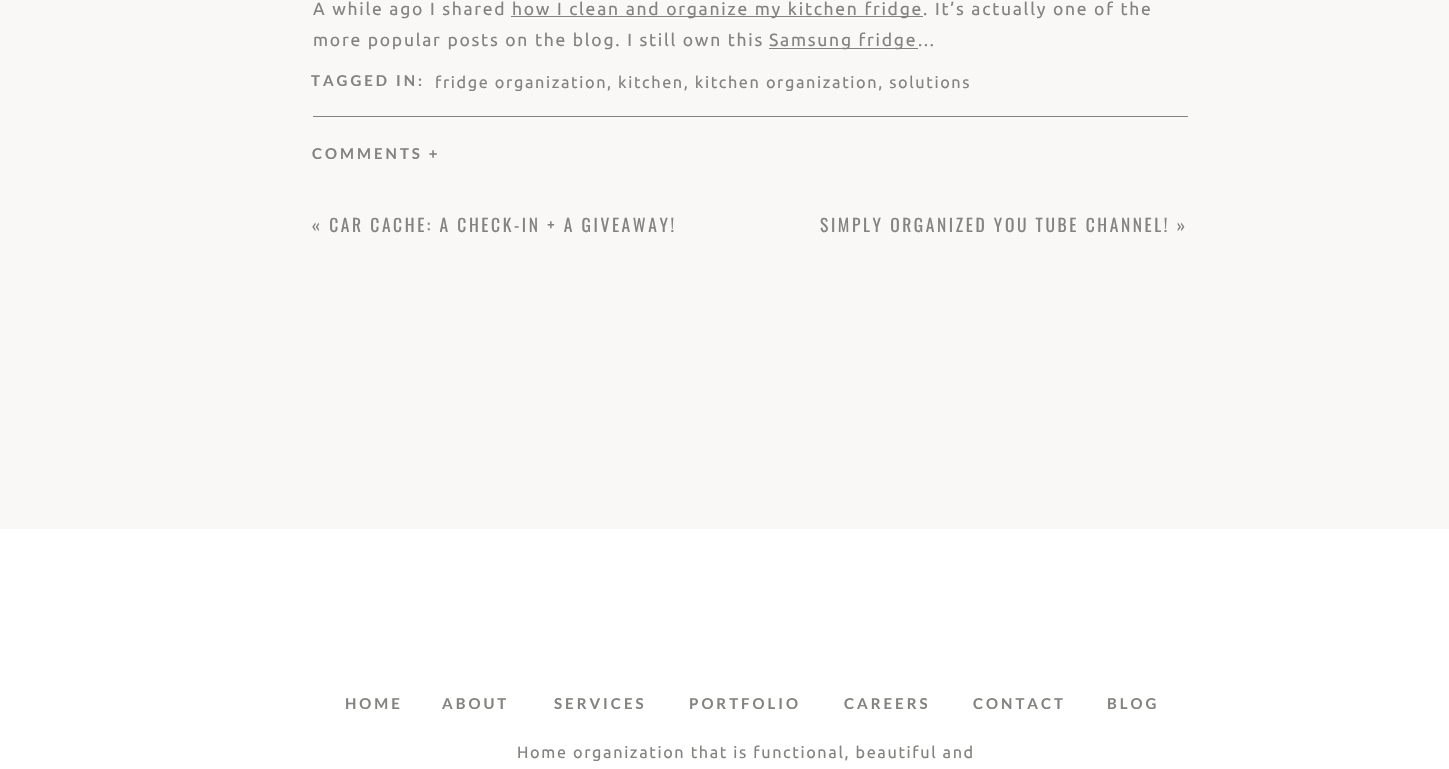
void draw(SkCanvas* canvas) {
	SkPaint paint;
	paint.setAntiAlias(true);
	auto spacedText = [&](const char* s, float x, float y, const SkFont& font, const SkPaint& ink, float letter, float word) {
		std::vector<SkGlyphID> glyphs(font.countText(s, strlen(s), SkTextEncoding::kUTF8));
		std::vector<float> xs(glyphs.size());
		font.textToGlyphs(s, strlen(s), SkTextEncoding::kUTF8, glyphs);
		font.getXPos(glyphs, xs, x);
		float extra = 0;
		for (size_t i = 0; i < glyphs.size(); i++) {
			xs[i] += extra;
			extra += letter + word * (glyphs[i] == font.unicharToGlyph(' '));
		}
		canvas->drawTextBlob(SkTextBlob::MakeFromPosHGlyphs(glyphs, xs, y, font), 0, 0, ink);
	};
	canvas->clear(0xffffffff);
	paint.setColor(0xfff9f8f6);
	canvas->drawRect(SkRect::MakeXYWH(0, 0, 1449, 529), paint);
	SkFont f1(fontMgr->matchFamilyStyle("Ubuntu", SkFontStyle::Normal()), 17.5);
	f1.setSubpixel(true);
	paint.setColor(0xff83847f);
	spacedText("A while ago I shared", 313, 15, f1, paint, 1.75, 0);
	canvas->drawRect(SkRect::MakeXYWH(511, 16, 412, 1), paint);
	spacedText("how I clean and organize my kitchen fridge. It’s actually one of the", 512, 15, f1, paint, 1.75, 0);
	spacedText("more popular posts on the blog. I still own this", 313, 46, f1, paint, 1.75, 0);
	canvas->drawRect(SkRect::MakeXYWH(769, 48, 149, 1), paint);
	spacedText("Samsung fridge…", 769, 46, f1, paint, 1.75, 0);
	SkFont f2(fontMgr->matchFamilyStyle("Lato", SkFontStyle::Bold()), 15);
	f2.setSubpixel(true);
	spacedText("TAGGED IN:", 311, 86, f2, paint, 3, 0);
	SkFont f3(fontMgr->matchFamilyStyle("Ubuntu", SkFontStyle::Normal()), 16.25);
	f3.setSubpixel(true);
	spacedText("fridge organization, kitchen, kitchen organization, solutions", 435, 88, f3, paint, 1.62, 0);
	canvas->drawRect(SkRect::MakeXYWH(313, 116, 875, 1), paint);
	spacedText("COMMENTS +", 312, 159, f2, paint, 3, 0);
	SkFont f4(fontMgr->matchFamilyStyle("Oswald", SkFontStyle::Normal()), 17.5);
	f4.setSubpixel(true);
	spacedText("« CAR CACHE: A CHECK-IN + A GIVEAWAY!", 312, 232, f4, paint, 2.6, 0);
	spacedText("SIMPLY ORGANIZED YOU TUBE CHANNEL! »", 820, 232, f4, paint, 2.6, 0);
	spacedText("HOME", 345, 709, f2, paint, 3, 0);
	spacedText("ABOUT", 442, 709, f2, paint, 3, 0);
	spacedText("SERVICES", 554, 709, f2, paint, 3, 0);
	spacedText("PORTFOLIO", 689, 709, f2, paint, 3, 0);
	spacedText("CAREERS", 844, 709, f2, paint, 3, 0);
	spacedText("CONTACT", 973, 709, f2, paint, 3, 0);
	spacedText("BLOG", 1107, 709, f2, paint, 3, 0);
	spacedText("Home organization that is functional, beautiful and", 517, 758, f3, paint, 1.62, 0);
}
